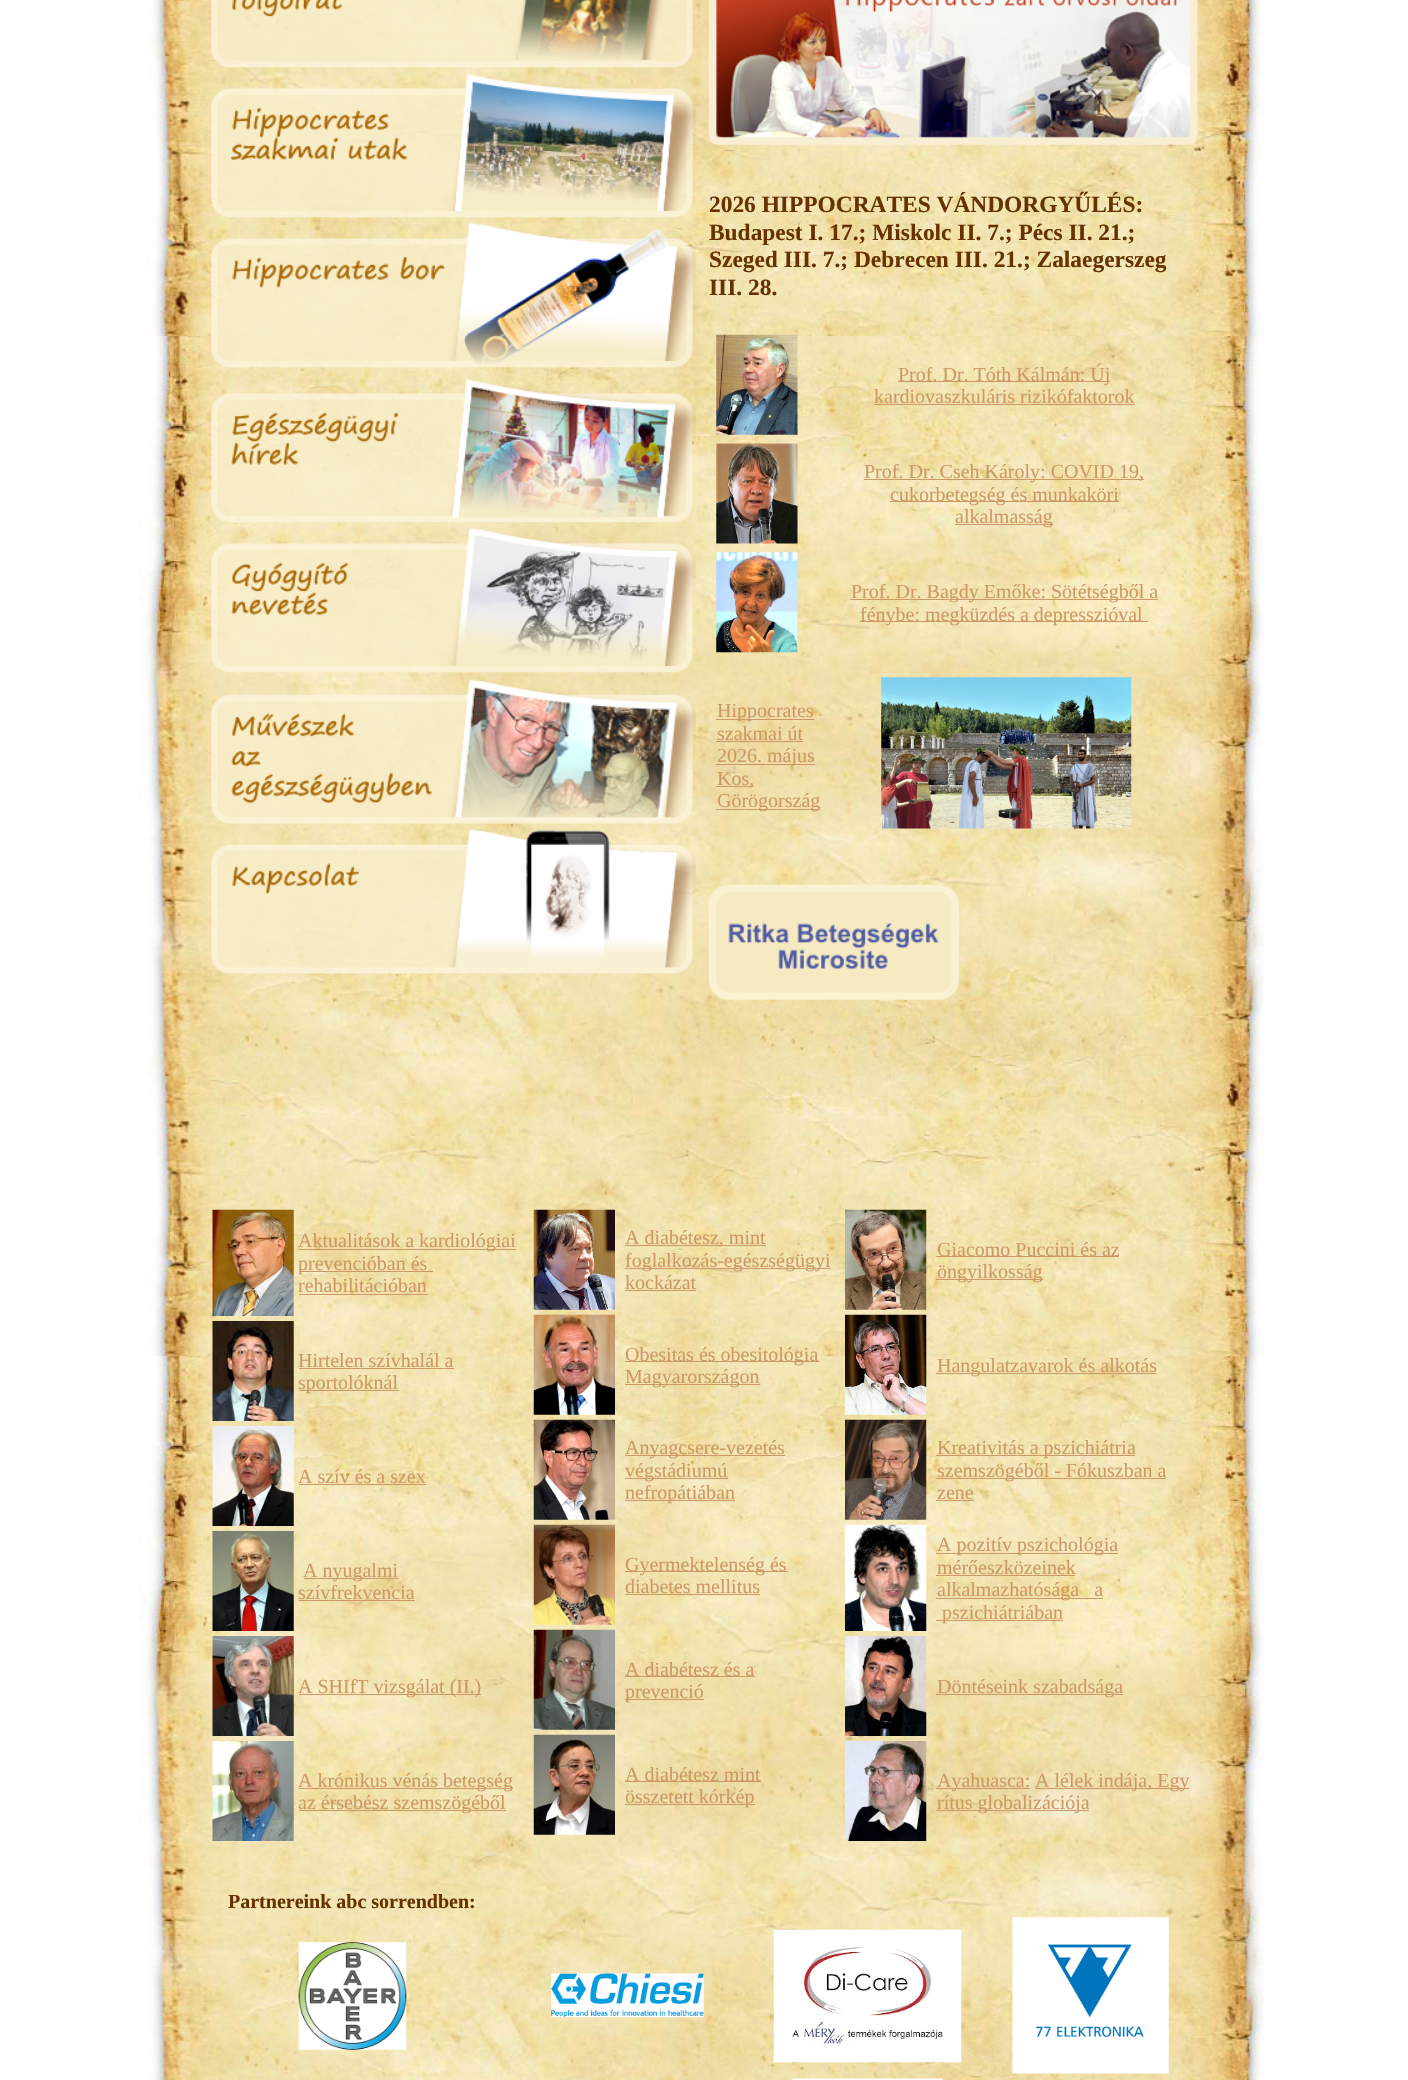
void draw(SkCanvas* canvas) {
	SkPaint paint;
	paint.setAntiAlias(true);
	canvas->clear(0xffffffff);
	canvas->drawImageRect(SkImages::DeferredFromEncodedData(SkData::MakeFromFileName("img1.png")), SkRect::MakeXYWH(138, 0, 1126, 2080), SkSamplingOptions());
	canvas->drawImageRect(SkImages::DeferredFromEncodedData(SkData::MakeFromFileName("img2.png")), SkRect::MakeXYWH(211, 0, 482, 68), SkSamplingOptions());
	canvas->drawImageRect(SkImages::DeferredFromEncodedData(SkData::MakeFromFileName("img3.png")), SkRect::MakeXYWH(211, 74, 485, 144), SkSamplingOptions());
	canvas->drawImageRect(SkImages::DeferredFromEncodedData(SkData::MakeFromFileName("img4.png")), SkRect::MakeXYWH(211, 223, 485, 145), SkSamplingOptions());
	canvas->drawImageRect(SkImages::DeferredFromEncodedData(SkData::MakeFromFileName("img5.png")), SkRect::MakeXYWH(211, 378, 485, 145), SkSamplingOptions());
	canvas->drawImageRect(SkImages::DeferredFromEncodedData(SkData::MakeFromFileName("img6.png")), SkRect::MakeXYWH(211, 528, 485, 145), SkSamplingOptions());
	canvas->drawImageRect(SkImages::DeferredFromEncodedData(SkData::MakeFromFileName("img7.png")), SkRect::MakeXYWH(211, 679, 485, 145), SkSamplingOptions());
	canvas->drawImageRect(SkImages::DeferredFromEncodedData(SkData::MakeFromFileName("img8.png")), SkRect::MakeXYWH(211, 829, 485, 145), SkSamplingOptions());
	canvas->drawImageRect(SkImages::DeferredFromEncodedData(SkData::MakeFromFileName("img9.png")), SkRect::MakeXYWH(708, 0, 490, 145), SkSamplingOptions());
	SkFont f1(fontMgr->matchFamilyStyle("Liberation Serif", SkFontStyle::Bold()), 23.4);
	f1.setSubpixel(true);
	paint.setColor(0xff663300);
	canvas->drawString("2026 HIPPOCRATES VÁNDORGYŰLÉS:", 709, 212, f1, paint);
	canvas->drawString("Budapest I. 17.; Miskolc II. 7.; Pécs II. 21.;", 709, 240, f1, paint);
	canvas->drawString("Szeged III. 7.; Debrecen III. 21.; Zalaegerszeg", 709, 267, f1, paint);
	canvas->drawString("III. 28.", 709, 295, f1, paint);
	canvas->drawImageRect(SkImages::DeferredFromEncodedData(SkData::MakeFromFileName("img10.png")), SkRect::MakeXYWH(716, 334, 82, 101), SkSamplingOptions());
	paint.setColor(0xffcc9966);
	canvas->drawRect(SkRect::MakeXYWH(898, 381, 212, 1), paint);
	SkFont f2(fontMgr->matchFamilyStyle("Liberation Serif", SkFontStyle::Normal()), 20);
	f2.setSubpixel(true);
	canvas->drawString("Prof. Dr. Tóth Kálmán: Új", 898, 381, f2, paint);
	canvas->drawString("kardiovaszkuláris rizikófaktorok", 874, 403, f2, paint);
	canvas->drawRect(SkRect::MakeXYWH(874, 404, 261, 1), paint);
	canvas->drawImageRect(SkImages::DeferredFromEncodedData(SkData::MakeFromFileName("img11.png")), SkRect::MakeXYWH(716, 443, 82, 101), SkSamplingOptions());
	canvas->drawRect(SkRect::MakeXYWH(864, 479, 280, 1), paint);
	canvas->drawString("Prof. Dr. Cseh Károly: COVID 19,", 864, 478, f2, paint);
	canvas->drawRect(SkRect::MakeXYWH(890, 501, 229, 1), paint);
	canvas->drawString("cukorbetegség és munkaköri", 890, 501, f2, paint);
	canvas->drawRect(SkRect::MakeXYWH(955, 524, 98, 1), paint);
	canvas->drawString("alkalmasság", 955, 523, f2, paint);
	canvas->drawImageRect(SkImages::DeferredFromEncodedData(SkData::MakeFromFileName("img12.png")), SkRect::MakeXYWH(716, 552, 82, 101), SkSamplingOptions());
	canvas->drawRect(SkRect::MakeXYWH(850, 599, 308, 1), paint);
	canvas->drawString("Prof. Dr. Bagdy Emőke: Sötétségből a", 851, 598, f2, paint);
	canvas->drawRect(SkRect::MakeXYWH(860, 621, 288, 1), paint);
	canvas->drawString("fénybe: megküzdés a depresszióval", 860, 621, f2, paint);
	canvas->drawRect(SkRect::MakeXYWH(716, 719, 98, 1), paint);
	canvas->drawString("Hippocrates", 717, 717, f2, paint);
	canvas->drawString("szakmai út", 717, 740, f2, paint);
	canvas->drawRect(SkRect::MakeXYWH(716, 741, 87, 1), paint);
	canvas->drawRect(SkRect::MakeXYWH(716, 764, 99, 1), paint);
	canvas->drawString("2026. május", 717, 762, f2, paint);
	canvas->drawRect(SkRect::MakeXYWH(716, 786, 38, 1), paint);
	canvas->drawString("Kos,", 717, 785, f2, paint);
	canvas->drawRect(SkRect::MakeXYWH(716, 809, 104, 1), paint);
	canvas->drawString("Görögország", 717, 807, f2, paint);
	canvas->drawImageRect(SkImages::DeferredFromEncodedData(SkData::MakeFromFileName("img13.png")), SkRect::MakeXYWH(881, 677, 251, 152), SkSamplingOptions());
	canvas->drawImageRect(SkImages::DeferredFromEncodedData(SkData::MakeFromFileName("img14.png")), SkRect::MakeXYWH(708, 884, 251, 116), SkSamplingOptions());
	canvas->drawImageRect(SkImages::DeferredFromEncodedData(SkData::MakeFromFileName("img15.png")), SkRect::MakeXYWH(212, 1209, 82, 107), SkSamplingOptions());
	canvas->drawRect(SkRect::MakeXYWH(299, 1249, 217, 1), paint);
	canvas->drawString("Aktualitások a kardiológiai", 298, 1247, f2, paint);
	canvas->drawRect(SkRect::MakeXYWH(299, 1271, 134, 1), paint);
	canvas->drawString("prevencióban és", 298, 1270, f2, paint);
	canvas->drawString("rehabilitációban", 298, 1292, f2, paint);
	canvas->drawRect(SkRect::MakeXYWH(299, 1294, 129, 1), paint);
	canvas->drawImageRect(SkImages::DeferredFromEncodedData(SkData::MakeFromFileName("img16.png")), SkRect::MakeXYWH(212, 1321, 82, 100), SkSamplingOptions());
	canvas->drawString("Hirtelen szívhalál a", 298, 1367, f2, paint);
	canvas->drawRect(SkRect::MakeXYWH(299, 1368, 155, 1), paint);
	canvas->drawRect(SkRect::MakeXYWH(299, 1390, 100, 1), paint);
	canvas->drawString("sportolóknál", 298, 1389, f2, paint);
	canvas->drawImageRect(SkImages::DeferredFromEncodedData(SkData::MakeFromFileName("img17.png")), SkRect::MakeXYWH(212, 1426, 82, 100), SkSamplingOptions());
	canvas->drawString("A szív és a szex", 298, 1483, f2, paint);
	canvas->drawRect(SkRect::MakeXYWH(299, 1484, 127, 1), paint);
	canvas->drawImageRect(SkImages::DeferredFromEncodedData(SkData::MakeFromFileName("img18.png")), SkRect::MakeXYWH(212, 1531, 82, 100), SkSamplingOptions());
	canvas->drawRect(SkRect::MakeXYWH(304, 1578, 95, 1), paint);
	canvas->drawString("A nyugalmi", 303, 1577, f2, paint);
	canvas->drawString("szívfrekvencia", 298, 1599, f2, paint);
	canvas->drawRect(SkRect::MakeXYWH(299, 1600, 116, 1), paint);
	canvas->drawImageRect(SkImages::DeferredFromEncodedData(SkData::MakeFromFileName("img19.png")), SkRect::MakeXYWH(212, 1636, 82, 100), SkSamplingOptions());
	canvas->drawRect(SkRect::MakeXYWH(299, 1694, 182, 1), paint);
	canvas->drawString("A SHIfT vizsgálat (II.)", 298, 1693, f2, paint);
	canvas->drawImageRect(SkImages::DeferredFromEncodedData(SkData::MakeFromFileName("img20.png")), SkRect::MakeXYWH(212, 1741, 82, 100), SkSamplingOptions());
	canvas->drawRect(SkRect::MakeXYWH(299, 1788, 214, 1), paint);
	canvas->drawString("A krónikus vénás betegség", 298, 1787, f2, paint);
	canvas->drawRect(SkRect::MakeXYWH(299, 1810, 207, 1), paint);
	canvas->drawString("az érsebész szemszögéből", 298, 1809, f2, paint);
	canvas->drawImageRect(SkImages::DeferredFromEncodedData(SkData::MakeFromFileName("img21.png")), SkRect::MakeXYWH(533, 1209, 82, 101), SkSamplingOptions());
	canvas->drawRect(SkRect::MakeXYWH(625, 1245, 141, 1), paint);
	canvas->drawString("A diabétesz, mint", 625, 1244, f2, paint);
	canvas->drawRect(SkRect::MakeXYWH(625, 1268, 206, 1), paint);
	canvas->drawString("foglalkozás-egészségügyi", 625, 1267, f2, paint);
	canvas->drawString("kockázat", 625, 1289, f2, paint);
	canvas->drawRect(SkRect::MakeXYWH(625, 1290, 71, 1), paint);
	canvas->drawImageRect(SkImages::DeferredFromEncodedData(SkData::MakeFromFileName("img22.png")), SkRect::MakeXYWH(533, 1314, 82, 101), SkSamplingOptions());
	canvas->drawRect(SkRect::MakeXYWH(625, 1361, 194, 1), paint);
	canvas->drawString("Obesitas és obesitológia", 625, 1361, f2, paint);
	canvas->drawRect(SkRect::MakeXYWH(625, 1384, 135, 1), paint);
	canvas->drawString("Magyarországon", 625, 1383, f2, paint);
	canvas->drawImageRect(SkImages::DeferredFromEncodedData(SkData::MakeFromFileName("img23.png")), SkRect::MakeXYWH(533, 1419, 82, 101), SkSamplingOptions());
	canvas->drawRect(SkRect::MakeXYWH(625, 1455, 160, 1), paint);
	canvas->drawString("Anyagcsere-vezetés", 625, 1454, f2, paint);
	canvas->drawRect(SkRect::MakeXYWH(625, 1478, 103, 1), paint);
	canvas->drawString("végstádiumú", 625, 1477, f2, paint);
	canvas->drawRect(SkRect::MakeXYWH(625, 1500, 110, 1), paint);
	canvas->drawString("nefropátiában", 625, 1499, f2, paint);
	canvas->drawImageRect(SkImages::DeferredFromEncodedData(SkData::MakeFromFileName("img24.png")), SkRect::MakeXYWH(533, 1524, 82, 101), SkSamplingOptions());
	canvas->drawRect(SkRect::MakeXYWH(625, 1571, 163, 1), paint);
	canvas->drawString("Gyermektelenség és", 625, 1571, f2, paint);
	canvas->drawString("diabetes mellitus", 625, 1593, f2, paint);
	canvas->drawRect(SkRect::MakeXYWH(625, 1594, 135, 1), paint);
	canvas->drawImageRect(SkImages::DeferredFromEncodedData(SkData::MakeFromFileName("img25.png")), SkRect::MakeXYWH(533, 1629, 82, 101), SkSamplingOptions());
	canvas->drawRect(SkRect::MakeXYWH(625, 1676, 130, 1), paint);
	canvas->drawString("A diabétesz és a", 625, 1676, f2, paint);
	canvas->drawRect(SkRect::MakeXYWH(625, 1699, 79, 1), paint);
	canvas->drawString("prevenció", 625, 1698, f2, paint);
	canvas->drawImageRect(SkImages::DeferredFromEncodedData(SkData::MakeFromFileName("img26.png")), SkRect::MakeXYWH(533, 1734, 82, 101), SkSamplingOptions());
	canvas->drawRect(SkRect::MakeXYWH(625, 1781, 136, 1), paint);
	canvas->drawString("A diabétesz mint", 625, 1781, f2, paint);
	canvas->drawRect(SkRect::MakeXYWH(625, 1804, 130, 1), paint);
	canvas->drawString("összetett kórkép", 625, 1803, f2, paint);
	canvas->drawImageRect(SkImages::DeferredFromEncodedData(SkData::MakeFromFileName("img27.png")), SkRect::MakeXYWH(845, 1209, 82, 101), SkSamplingOptions());
	canvas->drawRect(SkRect::MakeXYWH(936, 1256, 183, 1), paint);
	canvas->drawString("Giacomo Puccini és az", 937, 1256, f2, paint);
	canvas->drawRect(SkRect::MakeXYWH(936, 1279, 107, 1), paint);
	canvas->drawString("öngyilkosság", 937, 1278, f2, paint);
	canvas->drawImageRect(SkImages::DeferredFromEncodedData(SkData::MakeFromFileName("img28.png")), SkRect::MakeXYWH(845, 1314, 82, 101), SkSamplingOptions());
	canvas->drawRect(SkRect::MakeXYWH(936, 1373, 220, 1), paint);
	canvas->drawString("Hangulatzavarok és alkotás", 937, 1372, f2, paint);
	canvas->drawImageRect(SkImages::DeferredFromEncodedData(SkData::MakeFromFileName("img29.png")), SkRect::MakeXYWH(845, 1419, 82, 101), SkSamplingOptions());
	canvas->drawRect(SkRect::MakeXYWH(936, 1455, 199, 1), paint);
	canvas->drawString("Kreativitás a pszichiátria", 937, 1454, f2, paint);
	canvas->drawRect(SkRect::MakeXYWH(936, 1478, 230, 1), paint);
	canvas->drawString("szemszögéből - Fókuszban a", 937, 1477, f2, paint);
	canvas->drawString("zene", 937, 1499, f2, paint);
	canvas->drawRect(SkRect::MakeXYWH(936, 1500, 38, 1), paint);
	canvas->drawImageRect(SkImages::DeferredFromEncodedData(SkData::MakeFromFileName("img30.png")), SkRect::MakeXYWH(845, 1524, 82, 107), SkSamplingOptions());
	canvas->drawRect(SkRect::MakeXYWH(936, 1553, 182, 1), paint);
	canvas->drawString("A pozitív pszichológia", 937, 1551, f2, paint);
	canvas->drawString("mérőeszközeinek", 937, 1574, f2, paint);
	canvas->drawRect(SkRect::MakeXYWH(936, 1575, 139, 1), paint);
	canvas->drawRect(SkRect::MakeXYWH(936, 1598, 167, 1), paint);
	canvas->drawString("alkalmazhatósága   a", 937, 1596, f2, paint);
	canvas->drawRect(SkRect::MakeXYWH(936, 1620, 127, 1), paint);
	canvas->drawString("pszichiátriában", 942, 1619, f2, paint);
	canvas->drawImageRect(SkImages::DeferredFromEncodedData(SkData::MakeFromFileName("img31.png")), SkRect::MakeXYWH(845, 1636, 82, 100), SkSamplingOptions());
	canvas->drawRect(SkRect::MakeXYWH(936, 1694, 187, 1), paint);
	canvas->drawString("Döntéseink szabadsága", 937, 1693, f2, paint);
	canvas->drawImageRect(SkImages::DeferredFromEncodedData(SkData::MakeFromFileName("img32.png")), SkRect::MakeXYWH(845, 1741, 82, 100), SkSamplingOptions());
	canvas->drawRect(SkRect::MakeXYWH(936, 1788, 94, 1), paint);
	canvas->drawString("Ayahuasca:", 937, 1787, f2, paint);
	canvas->drawRect(SkRect::MakeXYWH(1035, 1788, 154, 1), paint);
	canvas->drawString("A lélek indája, Egy", 1035, 1787, f2, paint);
	canvas->drawRect(SkRect::MakeXYWH(936, 1810, 153, 1), paint);
	canvas->drawString("rítus globalizációja", 937, 1809, f2, paint);
	SkFont f3(fontMgr->matchFamilyStyle("Liberation Serif", SkFontStyle::Bold()), 20);
	f3.setSubpixel(true);
	paint.setColor(0xff663300);
	canvas->drawString("Partnereink abc sorrendben:", 228, 1908, f3, paint);
	canvas->drawImageRect(SkImages::DeferredFromEncodedData(SkData::MakeFromFileName("img33.png")), SkRect::MakeXYWH(298, 1942, 109, 108), SkSamplingOptions());
	canvas->drawImageRect(SkImages::DeferredFromEncodedData(SkData::MakeFromFileName("img34.png")), SkRect::MakeXYWH(551, 1973, 153, 45), SkSamplingOptions());
	canvas->drawImageRect(SkImages::DeferredFromEncodedData(SkData::MakeFromFileName("img35.png")), SkRect::MakeXYWH(773, 1929, 189, 134), SkSamplingOptions());
	canvas->drawImageRect(SkImages::DeferredFromEncodedData(SkData::MakeFromFileName("img36.png")), SkRect::MakeXYWH(1012, 1917, 157, 157), SkSamplingOptions());
	canvas->drawImageRect(SkImages::DeferredFromEncodedData(SkData::MakeFromFileName("img37.png")), SkRect::MakeXYWH(792, 2078, 151, 2), SkSamplingOptions());
}
